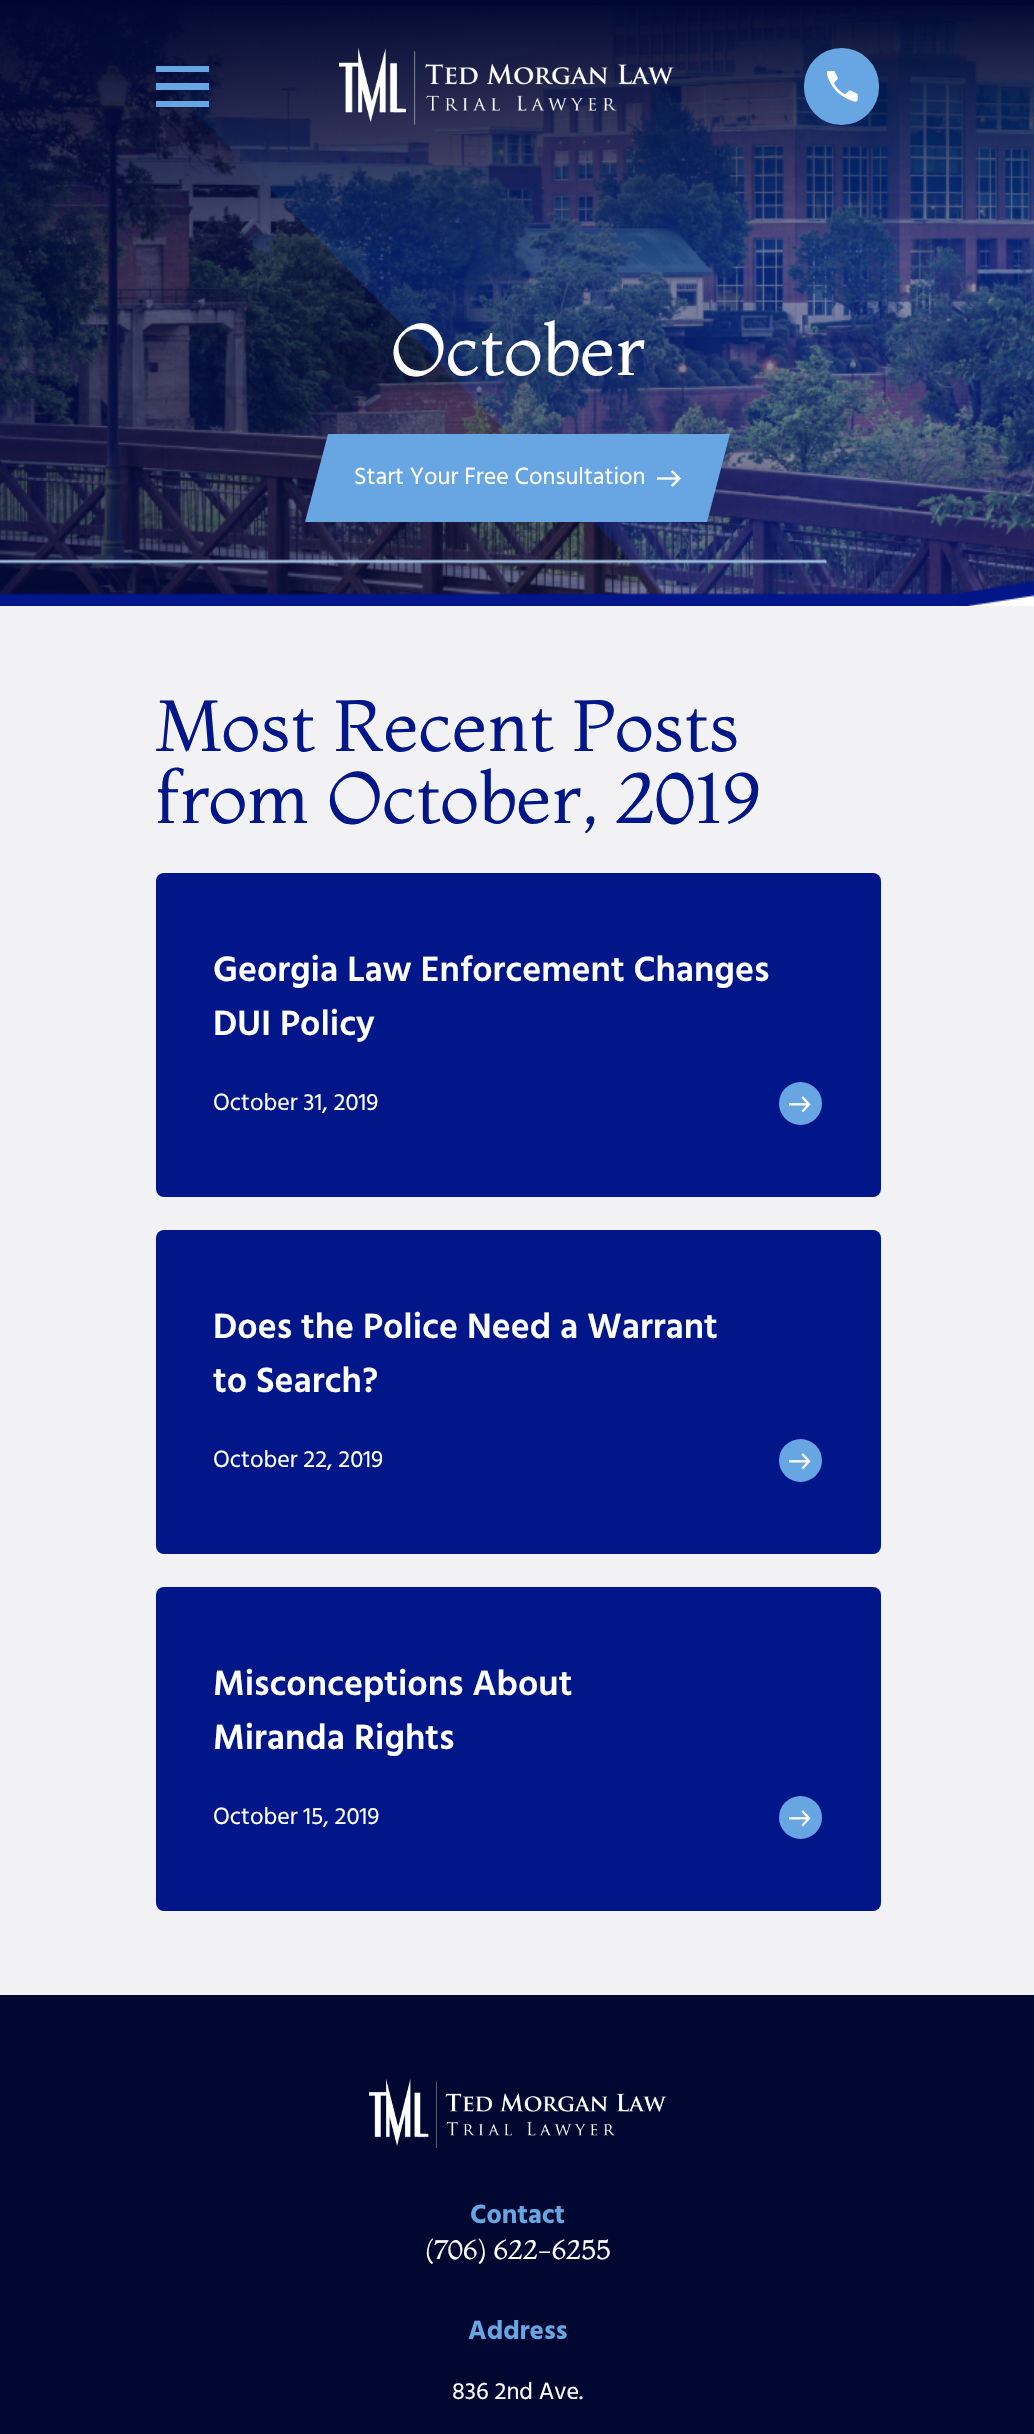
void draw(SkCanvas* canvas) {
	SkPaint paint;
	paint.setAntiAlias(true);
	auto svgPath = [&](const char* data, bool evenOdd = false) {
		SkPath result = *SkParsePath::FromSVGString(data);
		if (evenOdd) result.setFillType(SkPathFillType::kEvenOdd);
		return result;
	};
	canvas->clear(0xff000831);
	canvas->drawImageRect(SkImages::DeferredFromEncodedData(SkData::MakeFromFileName("img3.png")), SkRect::MakeXYWH(0, 5, 1034, 601), SkSamplingOptions());
	paint.setColor(0xff68a5e3);
	canvas->drawPath(svgPath("M156 66V72H209V66ZM156 83V90H209V83ZM156 101V107H209V101Z"), paint);
	canvas->drawImageRect(SkImages::DeferredFromEncodedData(SkData::MakeFromFileName("img1.png")), SkRect::MakeXYWH(339, 48, 335, 77), SkSamplingOptions());
	canvas->drawRoundRect(SkRect::MakeXYWH(804, 48, 75, 77), 37.5, 37.5, paint);
	canvas->drawImageRect(SkImages::DeferredFromEncodedData(SkData::MakeFromFileName("img2.png")), SkRect::MakeXYWH(827, 71, 31, 31), SkSamplingOptions());
	SkFont f1(fontMgr->matchFamilyStyle("Montaga", SkFontStyle::Normal()), 72);
	f1.setSubpixel(true);
	paint.setColor(0xffffffff);
	canvas->drawString("October", 391, 375, f1, paint);
	paint.setColor(0xff68a5e3);
	canvas->drawPath(svgPath("M328 434H730L707 522H305Z"), paint);
	SkFont f2(fontMgr->matchFamilyStyle("Hind", SkFontStyle::Normal()), 24);
	f2.setSubpixel(true);
	paint.setColor(0xffffffff);
	canvas->drawString("Start Your Free Consultation", 354, 484, f2, paint);
	canvas->drawImageRect(SkImages::DeferredFromEncodedData(SkData::MakeFromFileName("img4.png")), SkRect::MakeXYWH(657, 470, 24, 17), SkSamplingOptions());
	paint.setColor(0xfff2f2f5);
	canvas->drawRect(SkRect::MakeXYWH(0, 606, 1034, 1389), paint);
	paint.setColor(0xff001689);
	canvas->drawString("Most Recent Posts", 155, 751, f1, paint);
	canvas->drawString("from October, 2019", 155, 823, f1, paint);
	canvas->drawRoundRect(SkRect::MakeXYWH(156, 873, 725, 324), 8, 8, paint);
	SkFont f3(fontMgr->matchFamilyStyle("Hind", SkFontStyle(600, SkFontStyle::kNormal_Width, SkFontStyle::kUpright_Slant)), 36);
	f3.setSubpixel(true);
	paint.setColor(0xffffffff);
	canvas->drawString("Georgia Law Enforcement Changes", 213, 981, f3, paint);
	canvas->drawString("DUI Policy", 213, 1035, f3, paint);
	canvas->drawString("October 31, 2019", 213, 1110, f2, paint);
	paint.setColor(0xff68a5e3);
	canvas->drawCircle(800.5, 1103.5, 21.5, paint);
	canvas->drawImageRect(SkImages::DeferredFromEncodedData(SkData::MakeFromFileName("img5.png")), SkRect::MakeXYWH(789, 1096, 22, 17), SkSamplingOptions());
	paint.setColor(0xff001689);
	canvas->drawRoundRect(SkRect::MakeXYWH(156, 1230, 725, 324), 8, 8, paint);
	paint.setColor(0xffffffff);
	canvas->drawString("Does the Police Need a Warrant", 213, 1338, f3, paint);
	canvas->drawString("to Search?", 213, 1392, f3, paint);
	canvas->drawString("October 22, 2019", 213, 1467, f2, paint);
	paint.setColor(0xff68a5e3);
	canvas->drawCircle(800.5, 1460.5, 21.5, paint);
	canvas->drawImageRect(SkImages::DeferredFromEncodedData(SkData::MakeFromFileName("img5.png")), SkRect::MakeXYWH(789, 1453, 22, 17), SkSamplingOptions());
	paint.setColor(0xff001689);
	canvas->drawRoundRect(SkRect::MakeXYWH(156, 1587, 725, 324), 8, 8, paint);
	paint.setColor(0xffffffff);
	canvas->drawString("Misconceptions About", 213, 1695, f3, paint);
	canvas->drawString("Miranda Rights", 213, 1749, f3, paint);
	canvas->drawString("October 15, 2019", 213, 1824, f2, paint);
	paint.setColor(0xff68a5e3);
	canvas->drawCircle(800.5, 1817.5, 21.5, paint);
	canvas->drawImageRect(SkImages::DeferredFromEncodedData(SkData::MakeFromFileName("img5.png")), SkRect::MakeXYWH(789, 1810, 22, 17), SkSamplingOptions());
	canvas->drawImageRect(SkImages::DeferredFromEncodedData(SkData::MakeFromFileName("img6.png")), SkRect::MakeXYWH(369, 2079, 297, 69), SkSamplingOptions());
	SkFont f4(fontMgr->matchFamilyStyle("Hind", SkFontStyle::Bold()), 27);
	f4.setSubpixel(true);
	canvas->drawString("Contact", 470, 2223, f4, paint);
	SkFont f5(fontMgr->matchFamilyStyle("Montaga", SkFontStyle::Normal()), 27);
	f5.setSubpixel(true);
	paint.setColor(0xffffffff);
	canvas->drawString("(706) 622-6255", 425, 2259, f5, paint);
	paint.setColor(0xff68a5e3);
	canvas->drawString("Address", 468, 2339, f4, paint);
	paint.setColor(0xffffffff);
	canvas->drawString("836 2nd Ave.", 452, 2399, f2, paint);
}
